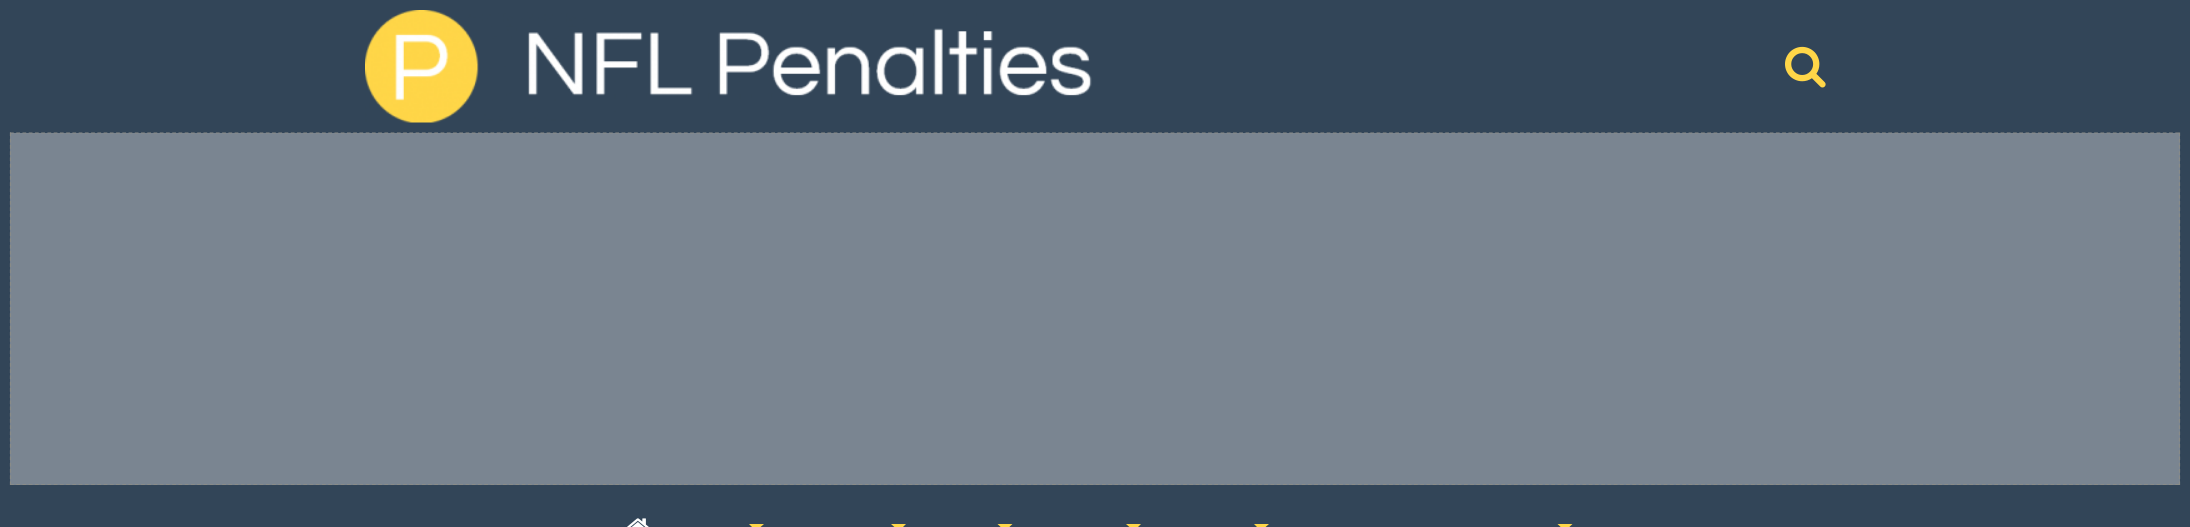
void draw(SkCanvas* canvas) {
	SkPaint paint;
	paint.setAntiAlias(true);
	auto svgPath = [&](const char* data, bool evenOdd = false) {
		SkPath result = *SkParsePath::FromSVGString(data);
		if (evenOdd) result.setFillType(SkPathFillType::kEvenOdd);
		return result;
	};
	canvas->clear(0xff324558);
	canvas->drawImageRect(SkImages::DeferredFromEncodedData(SkData::MakeFromFileName("img1.png")), SkRect::MakeXYWH(365, 10, 727, 113), SkSamplingOptions());
	canvas->drawImageRect(SkImages::DeferredFromEncodedData(SkData::MakeFromFileName("img2.png")), SkRect::MakeXYWH(1785, 46, 41, 42), SkSamplingOptions());
	paint.setColor(0xff7a8591);
	canvas->drawRect(SkRect::MakeXYWH(10, 133, 2170, 352), paint);
	paint.setStroke(true);
	paint.setStrokeWidth(1.2);
	paint.setColor(0xff898b88);
	paint.setPathEffect(SkDashPathEffect::Make({{3.75f, 2.49f}}, 0));
	canvas->drawPath(svgPath("M10 133H2180"), paint);
	paint.setPathEffect(nullptr);
	paint.setPathEffect(SkDashPathEffect::Make({{3.75f, 2.48f}}, 0));
	canvas->drawPath(svgPath("M2179.5 132.5V485"), paint);
	paint.setPathEffect(nullptr);
	paint.setPathEffect(SkDashPathEffect::Make({{3.75f, 2.49f}}, 0));
	canvas->drawPath(svgPath("M10 484.5H2180"), paint);
	paint.setPathEffect(nullptr);
	paint.setPathEffect(SkDashPathEffect::Make({{3.75f, 2.48f}}, 0));
	canvas->drawPath(svgPath("M10.5 132.5V485"), paint);
	paint.setPathEffect(nullptr);
	canvas->drawImageRect(SkImages::DeferredFromEncodedData(SkData::MakeFromFileName("img3.png")), SkRect::MakeXYWH(627, 518, 22, 9), SkSamplingOptions());
	paint.setStroke(false);
	paint.setColor(0xffffd648);
	canvas->drawPath(svgPath("M749 524H764L756 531Z"), paint);
	canvas->drawPath(svgPath("M891 524H906L899 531Z"), paint);
	canvas->drawPath(svgPath("M997.5 524H1012.5L1005 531Z"), paint);
	canvas->drawPath(svgPath("M1126 524H1141L1134 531Z"), paint);
	canvas->drawPath(svgPath("M1254 524H1269L1261 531Z"), paint);
	canvas->drawPath(svgPath("M1557.5 524H1572.5L1565 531Z"), paint);
}
